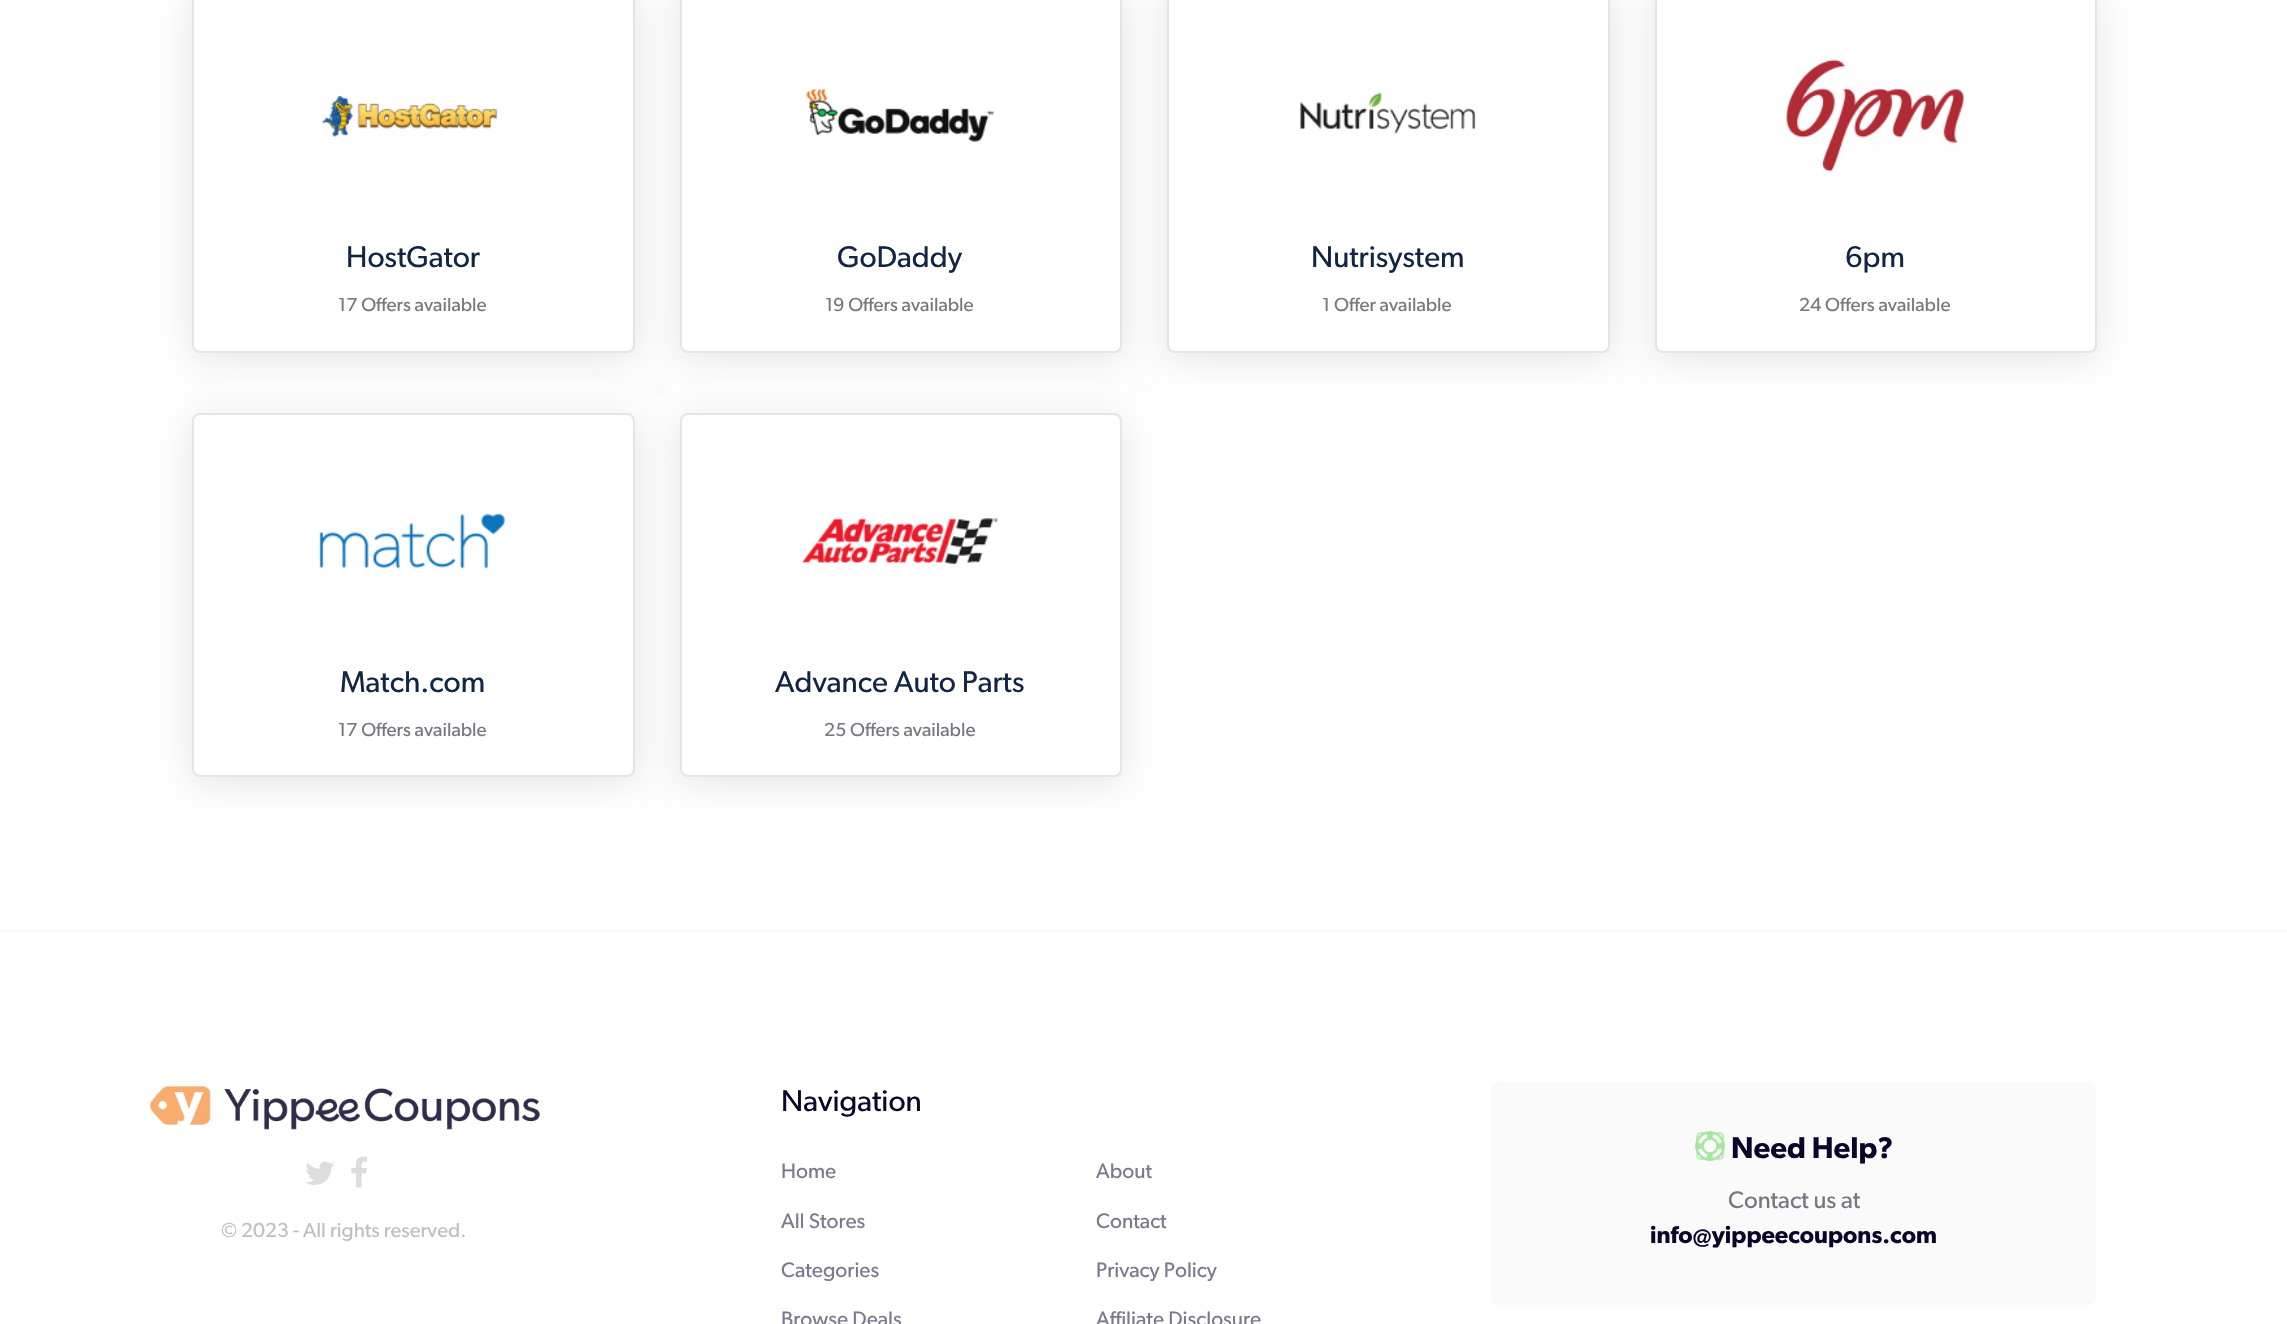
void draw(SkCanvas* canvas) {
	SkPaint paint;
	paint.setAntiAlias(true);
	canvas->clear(0xffffffff);
	paint.setColor(0x1a000000);
	paint.setMaskFilter(SkMaskFilter::MakeBlur(kNormal_SkBlurStyle, 19));
	canvas->drawRoundRect(SkRect::MakeXYWH(192, -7, 443, 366), 8, 8, paint);
	paint.setMaskFilter(nullptr);
	paint.setColor(0xffffffff);
	canvas->drawRoundRect(SkRect::MakeXYWH(192, -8, 443, 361), 8, 8, paint);
	paint.setStroke(true);
	paint.setStrokeWidth(2);
	paint.setColor(0x1a000000);
	canvas->drawRoundRect(SkRect::MakeXYWH(193, -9, 441, 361), 7, 7, paint);
	canvas->drawImageRect(SkImages::DeferredFromEncodedData(SkData::MakeFromFileName("img1.png")), SkRect::MakeXYWH(321, 95, 177, 42), SkSamplingOptions());
	SkFont f1(fontMgr->matchFamilyStyle("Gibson", SkFontStyle::Normal()), 30);
	f1.setSubpixel(true);
	paint.setStroke(false);
	paint.setColor(0xff122644);
	canvas->drawString("HostGator", 346, 267, f1, paint);
	SkFont f2(fontMgr->matchFamilyStyle("Gibson", SkFontStyle::Normal()), 19);
	f2.setSubpixel(true);
	paint.setColor(0xff787681);
	canvas->drawString("17 Offers available", 338, 311, f2, paint);
	paint.setColor(0x1a000000);
	paint.setMaskFilter(SkMaskFilter::MakeBlur(kNormal_SkBlurStyle, 19));
	canvas->drawRoundRect(SkRect::MakeXYWH(680, -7, 442, 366), 8, 8, paint);
	paint.setMaskFilter(nullptr);
	paint.setColor(0xffffffff);
	canvas->drawRoundRect(SkRect::MakeXYWH(680, -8, 442, 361), 8, 8, paint);
	paint.setStroke(true);
	paint.setColor(0x1a000000);
	canvas->drawRoundRect(SkRect::MakeXYWH(681, -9, 440, 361), 7, 7, paint);
	canvas->drawImageRect(SkImages::DeferredFromEncodedData(SkData::MakeFromFileName("img2.png")), SkRect::MakeXYWH(806, 88, 188, 54), SkSamplingOptions());
	paint.setStroke(false);
	paint.setColor(0xff122644);
	canvas->drawString("GoDaddy", 837, 267, f1, paint);
	paint.setColor(0xff787681);
	canvas->drawString("19 Offers available", 825, 311, f2, paint);
	paint.setColor(0x1a000000);
	paint.setMaskFilter(SkMaskFilter::MakeBlur(kNormal_SkBlurStyle, 19));
	canvas->drawRoundRect(SkRect::MakeXYWH(1167, -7, 443, 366), 8, 8, paint);
	paint.setMaskFilter(nullptr);
	paint.setColor(0xffffffff);
	canvas->drawRoundRect(SkRect::MakeXYWH(1167, -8, 443, 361), 8, 8, paint);
	paint.setStroke(true);
	paint.setColor(0x1a000000);
	canvas->drawRoundRect(SkRect::MakeXYWH(1168, -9, 441, 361), 7, 7, paint);
	canvas->drawImageRect(SkImages::DeferredFromEncodedData(SkData::MakeFromFileName("img3.png")), SkRect::MakeXYWH(1300, 92, 176, 42), SkSamplingOptions());
	paint.setStroke(false);
	paint.setColor(0xff122644);
	canvas->drawString("Nutrisystem", 1311, 267, f1, paint);
	paint.setColor(0xff787681);
	canvas->drawString("1 Offer available", 1322, 311, f2, paint);
	paint.setColor(0x1a000000);
	paint.setMaskFilter(SkMaskFilter::MakeBlur(kNormal_SkBlurStyle, 19));
	canvas->drawRoundRect(SkRect::MakeXYWH(1655, -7, 442, 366), 8, 8, paint);
	paint.setMaskFilter(nullptr);
	paint.setColor(0xffffffff);
	canvas->drawRoundRect(SkRect::MakeXYWH(1655, -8, 442, 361), 8, 8, paint);
	paint.setStroke(true);
	paint.setColor(0x1a000000);
	canvas->drawRoundRect(SkRect::MakeXYWH(1656, -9, 440, 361), 7, 7, paint);
	canvas->drawImageRect(SkImages::DeferredFromEncodedData(SkData::MakeFromFileName("img4.png")), SkRect::MakeXYWH(1786, 59, 179, 113), SkSamplingOptions());
	paint.setStroke(false);
	paint.setColor(0xff122644);
	canvas->drawString("6pm", 1845, 267, f1, paint);
	paint.setColor(0xff787681);
	canvas->drawString("24 Offers available", 1799, 311, f2, paint);
	paint.setColor(0x1a000000);
	paint.setMaskFilter(SkMaskFilter::MakeBlur(kNormal_SkBlurStyle, 19));
	canvas->drawRoundRect(SkRect::MakeXYWH(192, 419, 443, 364), 8, 8, paint);
	paint.setMaskFilter(nullptr);
	paint.setColor(0xffffffff);
	canvas->drawRoundRect(SkRect::MakeXYWH(192, 413, 443, 364), 8, 8, paint);
	paint.setStroke(true);
	paint.setColor(0x1a000000);
	canvas->drawRoundRect(SkRect::MakeXYWH(193, 414, 441, 362), 7, 7, paint);
	canvas->drawImageRect(SkImages::DeferredFromEncodedData(SkData::MakeFromFileName("img5.png")), SkRect::MakeXYWH(319, 513, 186, 56), SkSamplingOptions());
	paint.setStroke(false);
	paint.setColor(0xff122644);
	canvas->drawString("Match.com", 340, 692, f1, paint);
	paint.setColor(0xff787681);
	canvas->drawString("17 Offers available", 338, 736, f2, paint);
	paint.setColor(0x1a000000);
	paint.setMaskFilter(SkMaskFilter::MakeBlur(kNormal_SkBlurStyle, 19));
	canvas->drawRoundRect(SkRect::MakeXYWH(680, 419, 442, 364), 8, 8, paint);
	paint.setMaskFilter(nullptr);
	paint.setColor(0xffffffff);
	canvas->drawRoundRect(SkRect::MakeXYWH(681, 414, 440, 362), 7, 7, paint);
	paint.setStroke(true);
	paint.setColor(0xffe5e5e5);
	canvas->drawRoundRect(SkRect::MakeXYWH(681, 414, 440, 362), 7, 7, paint);
	canvas->drawImageRect(SkImages::DeferredFromEncodedData(SkData::MakeFromFileName("img6.png")), SkRect::MakeXYWH(802, 518, 196, 47), SkSamplingOptions());
	paint.setStroke(false);
	paint.setColor(0xff122644);
	canvas->drawString("Advance Auto Parts", 775, 692, f1, paint);
	paint.setColor(0xff787681);
	canvas->drawString("25 Offers available", 824, 736, f2, paint);
	paint.setColor(0xfffafafa);
	canvas->drawRect(SkRect::MakeXYWH(0, 929, 2287, 3), paint);
	canvas->drawImageRect(SkImages::DeferredFromEncodedData(SkData::MakeFromFileName("img7.png")), SkRect::MakeXYWH(150, 1086, 390, 44), SkSamplingOptions());
	canvas->drawImageRect(SkImages::DeferredFromEncodedData(SkData::MakeFromFileName("img8.png")), SkRect::MakeXYWH(305, 1161, 29, 24), SkSamplingOptions());
	canvas->drawImageRect(SkImages::DeferredFromEncodedData(SkData::MakeFromFileName("img9.png")), SkRect::MakeXYWH(351, 1156, 17, 32), SkSamplingOptions());
	SkFont f3(fontMgr->matchFamilyStyle("Gibson", SkFontStyle::Normal()), 20.4);
	f3.setSubpixel(true);
	paint.setColor(0xffbcbfc4);
	canvas->drawString("© 2023 - All rights reserved.", 221, 1237, f3, paint);
	paint.setColor(0xff0c052a);
	canvas->drawString("Navigation", 781, 1111, f1, paint);
	SkFont f4(fontMgr->matchFamilyStyle("Gibson", SkFontStyle::Normal()), 21);
	f4.setSubpixel(true);
	paint.setColor(0xff7c798f);
	canvas->drawString("Home", 781, 1178, f4, paint);
	canvas->drawString("About", 1096, 1178, f4, paint);
	canvas->drawString("All Stores", 781, 1228, f4, paint);
	canvas->drawString("Contact", 1096, 1228, f4, paint);
	canvas->drawString("Categories", 781, 1277, f4, paint);
	canvas->drawString("Privacy Policy", 1096, 1277, f4, paint);
	canvas->drawString("Browse Deals", 781, 1326, f4, paint);
	canvas->drawString("Affiliate Disclosure", 1096, 1326, f4, paint);
	paint.setColor(0xfffafafa);
	canvas->drawRoundRect(SkRect::MakeXYWH(1491, 1082, 605, 223), 8, 8, paint);
	canvas->drawImageRect(SkImages::DeferredFromEncodedData(SkData::MakeFromFileName("img10.png")), SkRect::MakeXYWH(1695, 1131, 30, 30), SkSamplingOptions());
	SkFont f5(fontMgr->matchFamilyStyle("Gibson", SkFontStyle(600, SkFontStyle::kNormal_Width, SkFontStyle::kUpright_Slant)), 30);
	f5.setSubpixel(true);
	paint.setColor(0xff0c052a);
	canvas->drawString("Need Help?", 1731, 1158, f5, paint);
	SkFont f6(fontMgr->matchFamilyStyle("Gibson", SkFontStyle::Normal()), 24);
	f6.setSubpixel(true);
	paint.setColor(0xff787681);
	canvas->drawString("Contact us at", 1728, 1208, f6, paint);
	SkFont f7(fontMgr->matchFamilyStyle("Gibson", SkFontStyle(600, SkFontStyle::kNormal_Width, SkFontStyle::kUpright_Slant)), 24);
	f7.setSubpixel(true);
	paint.setColor(0xff0c052a);
	canvas->drawString("info@yippeecoupons.com", 1650, 1243, f7, paint);
}
